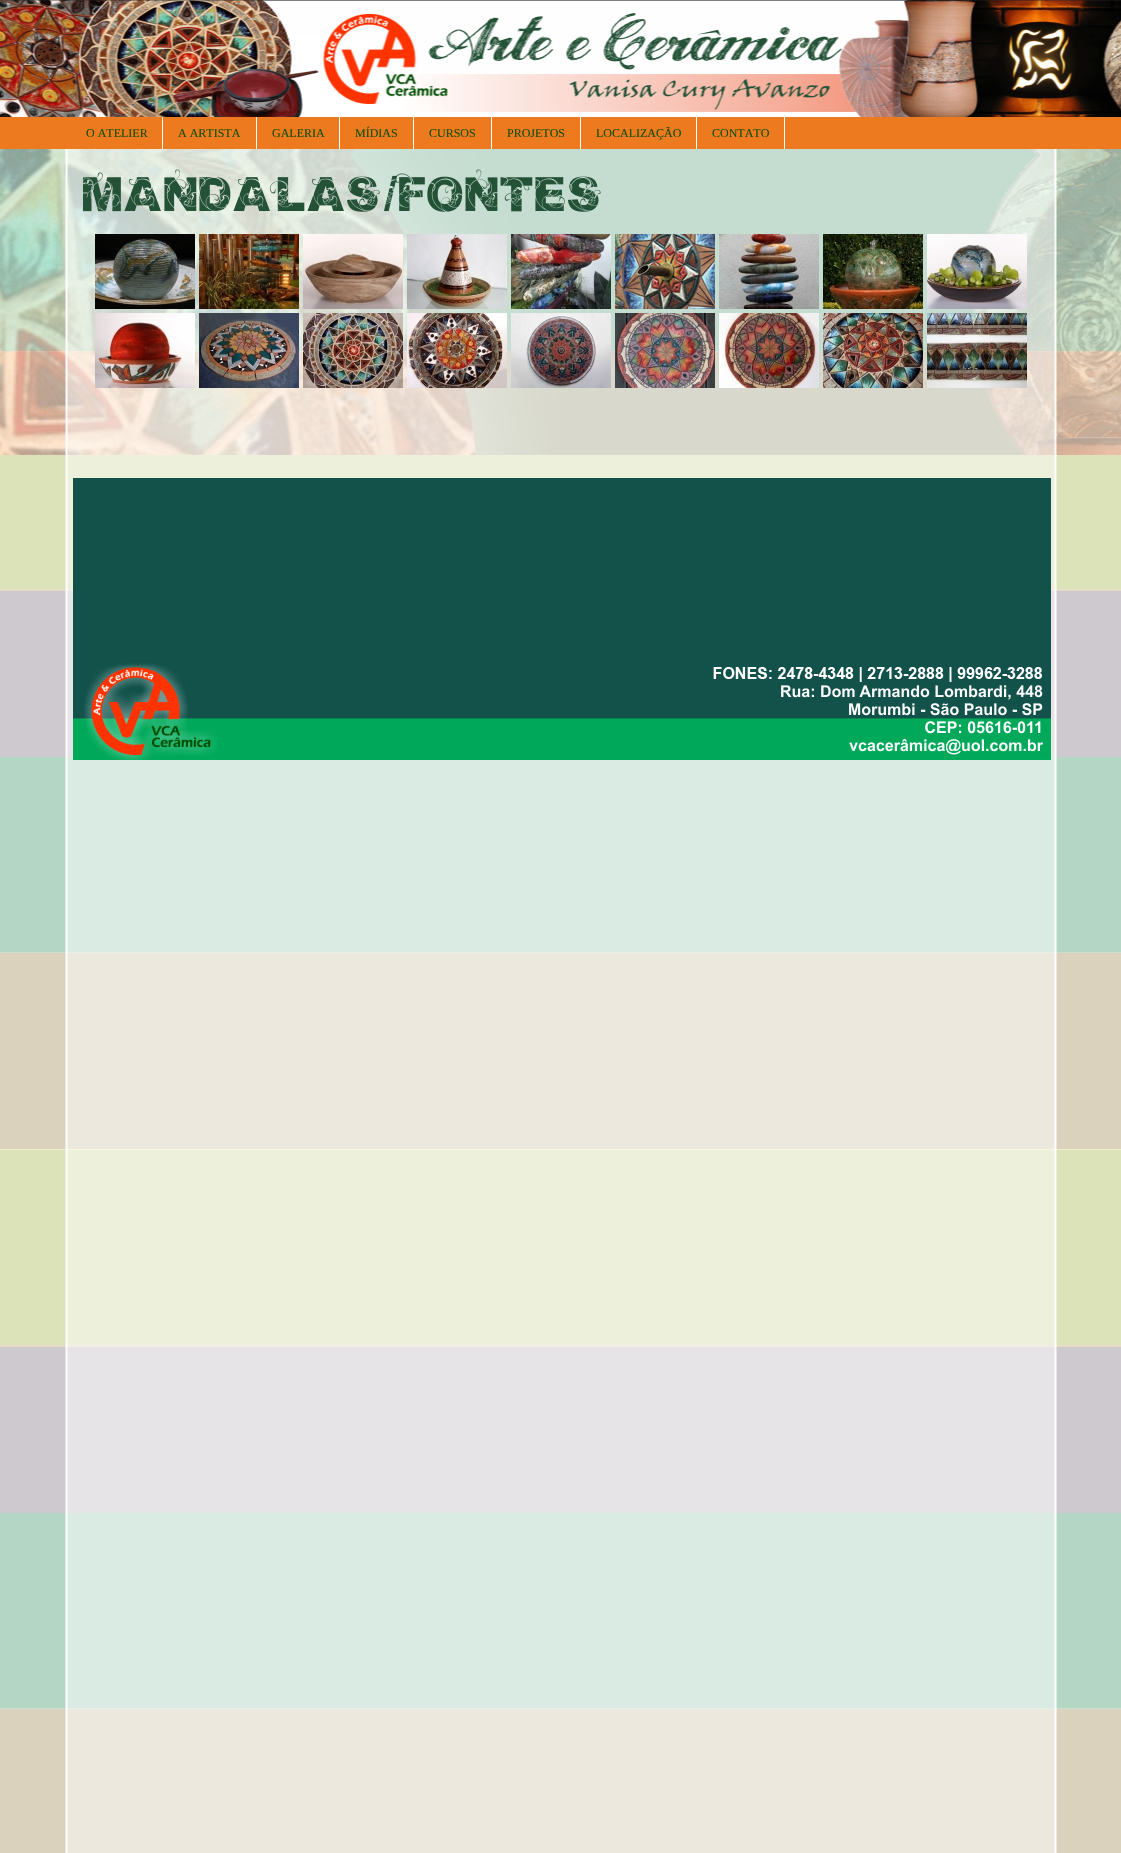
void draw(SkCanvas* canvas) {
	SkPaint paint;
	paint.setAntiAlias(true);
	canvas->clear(0xffffffff);
	canvas->drawImageRect(SkImages::DeferredFromEncodedData(SkData::MakeFromFileName("img1.png")), SkRect::MakeXYWH(0, 455, 1121, 1398), SkSamplingOptions());
	canvas->drawImageRect(SkImages::DeferredFromEncodedData(SkData::MakeFromFileName("img2.png")), SkRect::MakeXYWH(0, 0, 1121, 455), SkSamplingOptions());
	paint.setColor(0xffffffff);
	canvas->drawRect(SkRect::MakeXYWH(162, 117, 1, 32), paint);
	SkFont f1(fontMgr->matchFamilyStyle("Liberation Serif", SkFontStyle::Normal()), 12);
	f1.setSubpixel(true);
	paint.setColor(0xff0e4e03);
	canvas->drawString("O ATELIER", 86, 137, f1, paint);
	paint.setColor(0xffffffff);
	canvas->drawRect(SkRect::MakeXYWH(256, 117, 1, 32), paint);
	paint.setColor(0xff0e4e03);
	canvas->drawString("A ARTISTA", 178, 137, f1, paint);
	paint.setColor(0xffffffff);
	canvas->drawRect(SkRect::MakeXYWH(339, 117, 1, 32), paint);
	paint.setColor(0xff0e4e03);
	canvas->drawString("GALERIA", 272, 137, f1, paint);
	paint.setColor(0xffffffff);
	canvas->drawRect(SkRect::MakeXYWH(413, 117, 1, 32), paint);
	paint.setColor(0xff0e4e03);
	canvas->drawString("MÍDIAS", 355, 137, f1, paint);
	paint.setColor(0xffffffff);
	canvas->drawRect(SkRect::MakeXYWH(491, 117, 1, 32), paint);
	paint.setColor(0xff0e4e03);
	canvas->drawString("CURSOS", 429, 137, f1, paint);
	paint.setColor(0xffffffff);
	canvas->drawRect(SkRect::MakeXYWH(580, 117, 1, 32), paint);
	paint.setColor(0xff0e4e03);
	canvas->drawString("PROJETOS", 507, 137, f1, paint);
	paint.setColor(0xffffffff);
	canvas->drawRect(SkRect::MakeXYWH(696, 117, 1, 32), paint);
	paint.setColor(0xff0e4e03);
	canvas->drawString("LOCALIZAÇÃO", 596, 137, f1, paint);
	paint.setColor(0xffffffff);
	canvas->drawRect(SkRect::MakeXYWH(784, 117, 1, 32), paint);
	paint.setColor(0xff0e4e03);
	canvas->drawString("CONTATO", 712, 137, f1, paint);
	canvas->drawImageRect(SkImages::DeferredFromEncodedData(SkData::MakeFromFileName("img3.png")), SkRect::MakeXYWH(83, 169, 518, 43), SkSamplingOptions());
	canvas->drawImageRect(SkImages::DeferredFromEncodedData(SkData::MakeFromFileName("img4.png")), SkRect::MakeXYWH(95, 234, 100, 75), SkSamplingOptions());
	canvas->drawImageRect(SkImages::DeferredFromEncodedData(SkData::MakeFromFileName("img5.png")), SkRect::MakeXYWH(199, 234, 100, 75), SkSamplingOptions());
	canvas->drawImageRect(SkImages::DeferredFromEncodedData(SkData::MakeFromFileName("img6.png")), SkRect::MakeXYWH(303, 234, 100, 75), SkSamplingOptions());
	canvas->drawImageRect(SkImages::DeferredFromEncodedData(SkData::MakeFromFileName("img7.png")), SkRect::MakeXYWH(407, 234, 100, 75), SkSamplingOptions());
	canvas->drawImageRect(SkImages::DeferredFromEncodedData(SkData::MakeFromFileName("img8.png")), SkRect::MakeXYWH(511, 234, 100, 75), SkSamplingOptions());
	canvas->drawImageRect(SkImages::DeferredFromEncodedData(SkData::MakeFromFileName("img9.png")), SkRect::MakeXYWH(615, 234, 100, 75), SkSamplingOptions());
	canvas->drawImageRect(SkImages::DeferredFromEncodedData(SkData::MakeFromFileName("img10.png")), SkRect::MakeXYWH(719, 234, 100, 75), SkSamplingOptions());
	canvas->drawImageRect(SkImages::DeferredFromEncodedData(SkData::MakeFromFileName("img11.png")), SkRect::MakeXYWH(823, 234, 100, 75), SkSamplingOptions());
	canvas->drawImageRect(SkImages::DeferredFromEncodedData(SkData::MakeFromFileName("img12.png")), SkRect::MakeXYWH(927, 234, 100, 75), SkSamplingOptions());
	canvas->drawImageRect(SkImages::DeferredFromEncodedData(SkData::MakeFromFileName("img13.png")), SkRect::MakeXYWH(95, 313, 100, 75), SkSamplingOptions());
	canvas->drawImageRect(SkImages::DeferredFromEncodedData(SkData::MakeFromFileName("img14.png")), SkRect::MakeXYWH(199, 313, 100, 75), SkSamplingOptions());
	canvas->drawImageRect(SkImages::DeferredFromEncodedData(SkData::MakeFromFileName("img15.png")), SkRect::MakeXYWH(303, 313, 100, 75), SkSamplingOptions());
	canvas->drawImageRect(SkImages::DeferredFromEncodedData(SkData::MakeFromFileName("img16.png")), SkRect::MakeXYWH(407, 313, 100, 75), SkSamplingOptions());
	canvas->drawImageRect(SkImages::DeferredFromEncodedData(SkData::MakeFromFileName("img17.png")), SkRect::MakeXYWH(511, 313, 100, 75), SkSamplingOptions());
	canvas->drawImageRect(SkImages::DeferredFromEncodedData(SkData::MakeFromFileName("img18.png")), SkRect::MakeXYWH(615, 313, 100, 75), SkSamplingOptions());
	canvas->drawImageRect(SkImages::DeferredFromEncodedData(SkData::MakeFromFileName("img19.png")), SkRect::MakeXYWH(719, 313, 100, 75), SkSamplingOptions());
	canvas->drawImageRect(SkImages::DeferredFromEncodedData(SkData::MakeFromFileName("img20.png")), SkRect::MakeXYWH(823, 313, 100, 75), SkSamplingOptions());
	canvas->drawImageRect(SkImages::DeferredFromEncodedData(SkData::MakeFromFileName("img21.png")), SkRect::MakeXYWH(927, 313, 100, 75), SkSamplingOptions());
	canvas->drawImageRect(SkImages::DeferredFromEncodedData(SkData::MakeFromFileName("img22.png")), SkRect::MakeXYWH(73, 478, 978, 282), SkSamplingOptions());
}
